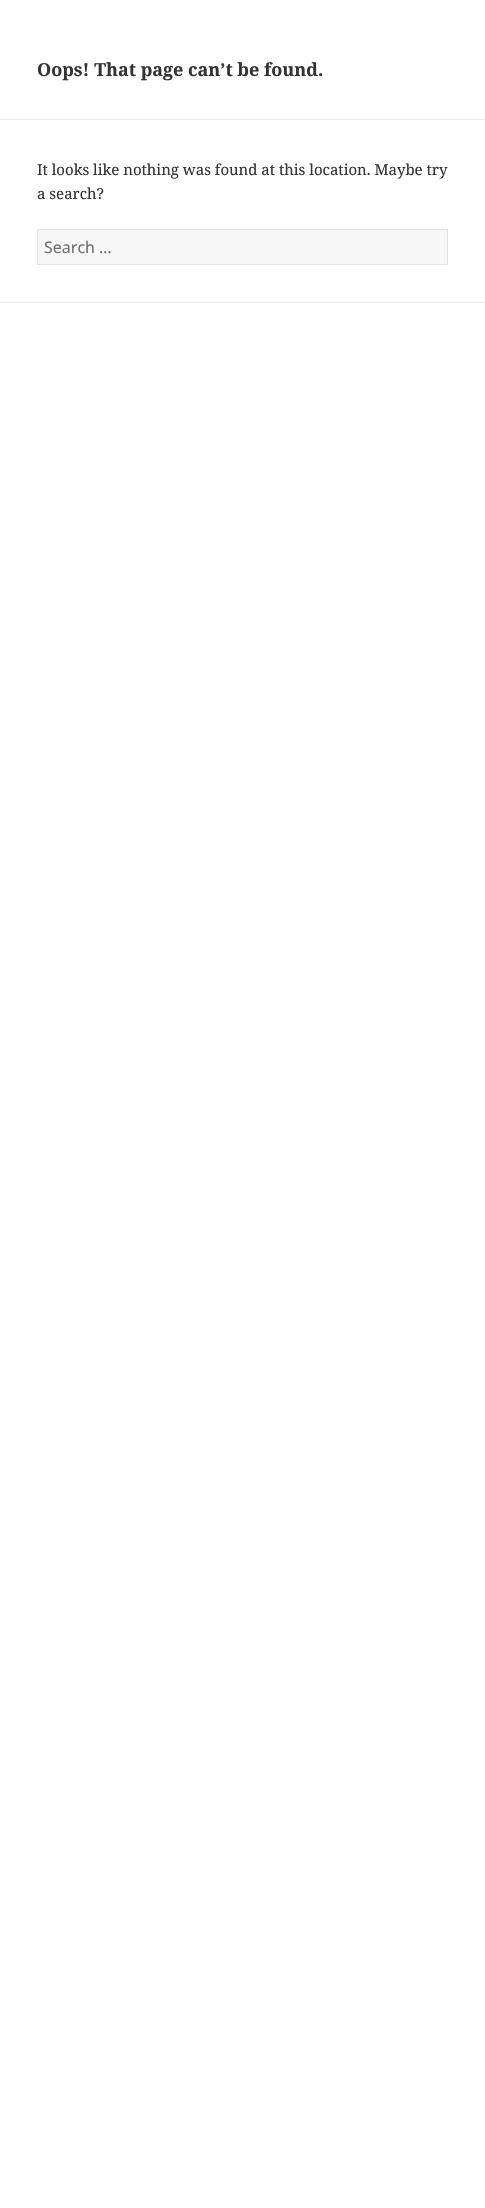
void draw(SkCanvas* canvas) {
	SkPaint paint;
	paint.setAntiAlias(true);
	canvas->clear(0xffffffff);
	paint.setColor(0xffebebeb);
	canvas->drawRect(SkRect::MakeXYWH(0, 119, 485, 1), paint);
	SkFont f1(fontMgr->matchFamilyStyle("Noto Serif", SkFontStyle::Bold()), 18);
	f1.setSubpixel(true);
	paint.setColor(0xff333333);
	canvas->drawString("Oops! That page can’t be found.", 37, 76, f1, paint);
	SkFont f2(fontMgr->matchFamilyStyle("Noto Serif", SkFontStyle::Normal()), 15);
	f2.setSubpixel(true);
	canvas->drawString("It looks like nothing was found at this location. Maybe try", 37, 175, f2, paint);
	canvas->drawString("a search?", 37, 199, f2, paint);
	paint.setColor(0xfff7f7f7);
	canvas->drawRect(SkRect::MakeXYWH(37.5, 229.5, 410, 35), paint);
	paint.setStroke(true);
	paint.setStrokeWidth(1);
	paint.setColor(0xffe3e3e3);
	canvas->drawRect(SkRect::MakeXYWH(37.5, 229.5, 410, 35), paint);
	SkFont f3(fontMgr->matchFamilyStyle("Noto Sans", SkFontStyle::Normal()), 16);
	f3.setSubpixel(true);
	paint.setStroke(false);
	paint.setColor(0xff6e6e6e);
	canvas->drawString("Search …", 44, 253, f3, paint);
	paint.setColor(0xffebebeb);
	canvas->drawRect(SkRect::MakeXYWH(0, 302, 485, 1), paint);
}
